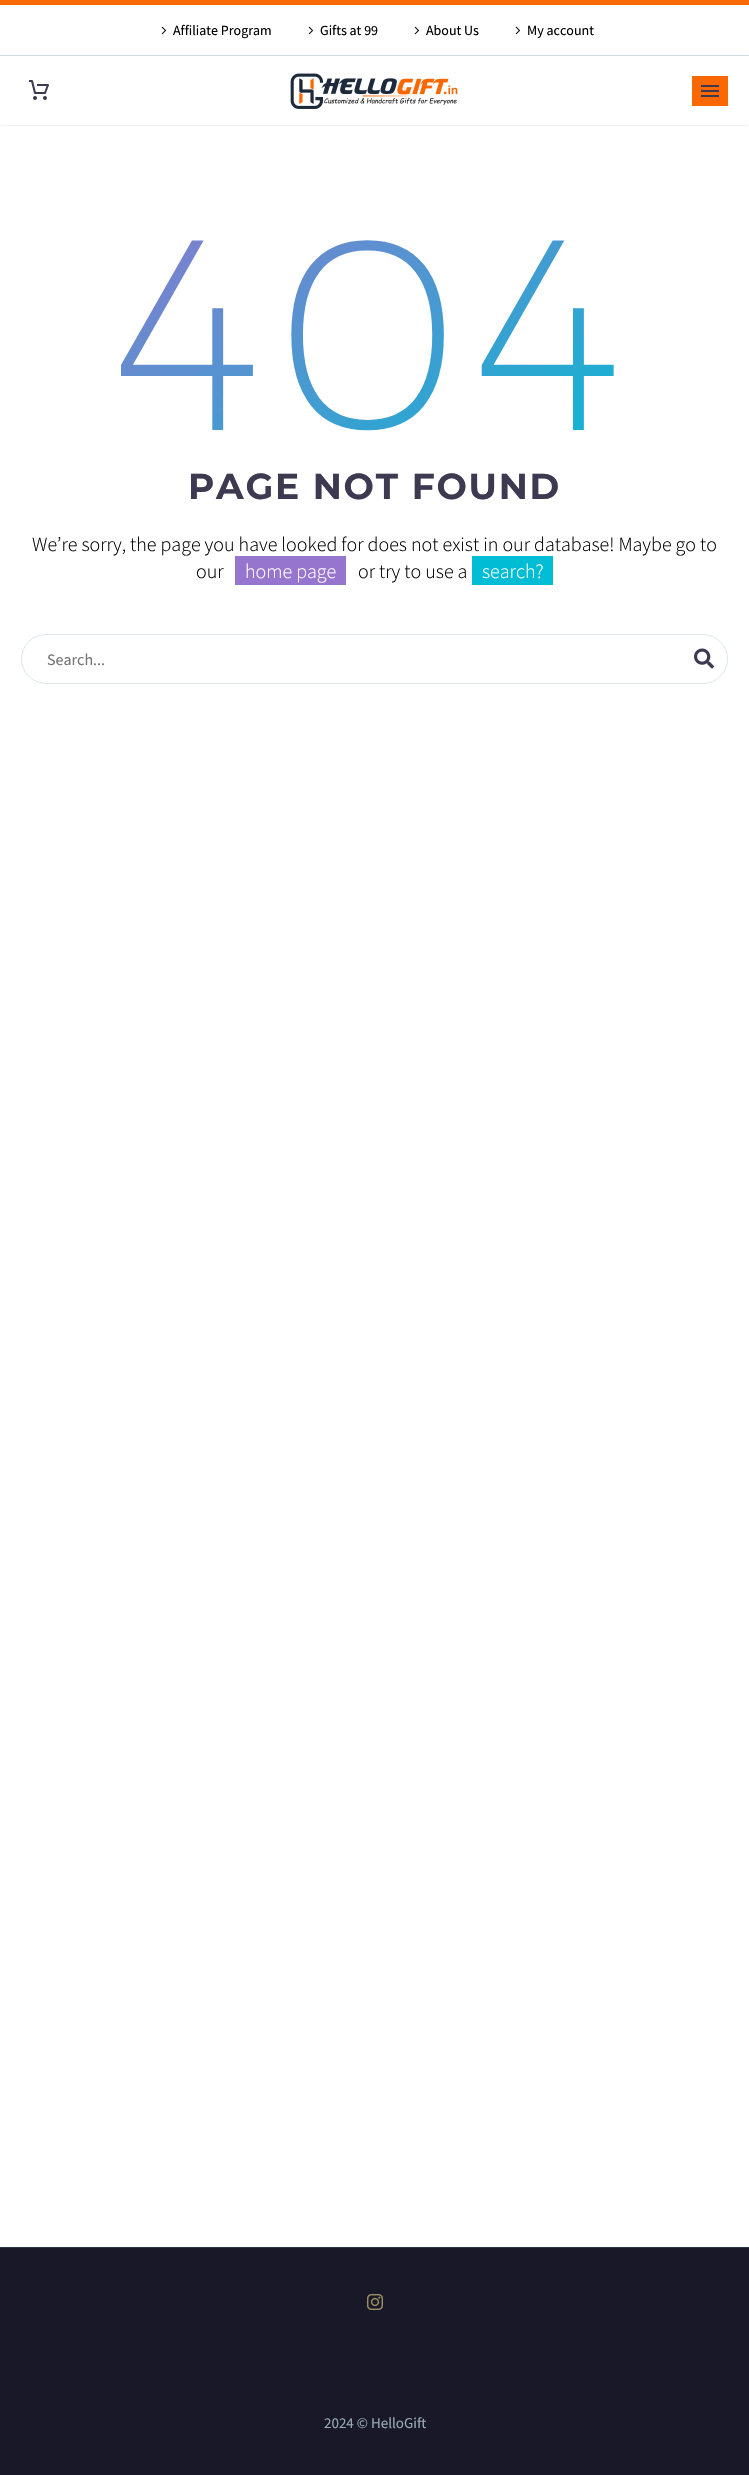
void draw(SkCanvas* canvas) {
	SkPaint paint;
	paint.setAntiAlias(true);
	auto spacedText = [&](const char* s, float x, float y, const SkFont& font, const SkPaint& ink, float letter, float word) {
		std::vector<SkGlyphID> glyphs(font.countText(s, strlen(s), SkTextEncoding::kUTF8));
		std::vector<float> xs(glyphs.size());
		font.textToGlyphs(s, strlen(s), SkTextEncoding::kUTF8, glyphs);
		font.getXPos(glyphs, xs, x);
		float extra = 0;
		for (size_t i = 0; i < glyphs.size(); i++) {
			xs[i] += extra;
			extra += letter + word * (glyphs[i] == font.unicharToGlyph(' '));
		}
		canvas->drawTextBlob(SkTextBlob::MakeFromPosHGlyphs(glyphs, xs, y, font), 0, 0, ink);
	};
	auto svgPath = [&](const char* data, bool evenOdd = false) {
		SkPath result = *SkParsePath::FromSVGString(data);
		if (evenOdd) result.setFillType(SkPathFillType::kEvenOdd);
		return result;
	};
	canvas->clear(0xffffffff);
	paint.setColor(0xfffa6803);
	canvas->drawRect(SkRect::MakeXYWH(0, 0, 749, 5), paint);
	paint.setColor(0xffdfe5e8);
	canvas->drawRect(SkRect::MakeXYWH(0, 55, 749, 1), paint);
	canvas->drawImageRect(SkImages::DeferredFromEncodedData(SkData::MakeFromFileName("img1.png")), SkRect::MakeXYWH(161, 26, 5, 9), SkSamplingOptions());
	SkFont f1(fontMgr->matchFamilyStyle("Source Sans Pro", SkFontStyle::Normal()), 14);
	f1.setSubpixel(true);
	paint.setColor(0xff000000);
	canvas->drawString("Affiliate Program", 173, 35, f1, paint);
	canvas->drawImageRect(SkImages::DeferredFromEncodedData(SkData::MakeFromFileName("img1.png")), SkRect::MakeXYWH(308, 26, 5, 9), SkSamplingOptions());
	canvas->drawString("Gifts at 99", 320, 35, f1, paint);
	canvas->drawImageRect(SkImages::DeferredFromEncodedData(SkData::MakeFromFileName("img1.png")), SkRect::MakeXYWH(414, 26, 5, 9), SkSamplingOptions());
	canvas->drawString("About Us", 426, 35, f1, paint);
	canvas->drawImageRect(SkImages::DeferredFromEncodedData(SkData::MakeFromFileName("img1.png")), SkRect::MakeXYWH(515, 26, 5, 9), SkSamplingOptions());
	canvas->drawString("My account", 527, 35, f1, paint);
	canvas->save();
	canvas->clipPath(svgPath("M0 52H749V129H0ZM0 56H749V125H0Z", true), true);
	paint.setColor(0x33384554);
	paint.setMaskFilter(SkMaskFilter::MakeBlur(kNormal_SkBlurStyle, 1));
	canvas->drawRect(SkRect::MakeXYWH(0, 56, 749, 69), paint);
	paint.setMaskFilter(nullptr);
	canvas->restore();
	canvas->drawImageRect(SkImages::DeferredFromEncodedData(SkData::MakeFromFileName("img2.png")), SkRect::MakeXYWH(29, 80, 20, 20), SkSamplingOptions());
	canvas->drawImageRect(SkImages::DeferredFromEncodedData(SkData::MakeFromFileName("img3.png")), SkRect::MakeXYWH(290, 73, 168, 36), SkSamplingOptions());
	paint.setColor(0xfffa6803);
	canvas->drawRect(SkRect::MakeXYWH(692, 76, 36, 30), paint);
	paint.setColor(0xff3c3950);
	canvas->drawRect(SkRect::MakeXYWH(701, 85, 18, 2), paint);
	canvas->drawRect(SkRect::MakeXYWH(701, 90, 18, 2), paint);
	canvas->drawRect(SkRect::MakeXYWH(701, 95, 18, 2), paint);
	SkFont f2(fontMgr->matchFamilyStyle("Montserrat", SkFontStyle(200, SkFontStyle::kNormal_Width, SkFontStyle::kUpright_Slant)), 271);
	f2.setSubpixel(true);
	{
		const SkColor colors[] = {0xff9575cd, 0xff00bcd4};
		const float stops[] = {0, 1};
		const SkPoint ends[] = {{112, 169}, {399, 637}};
		paint.setShader(SkGradientShader::MakeLinear(ends, colors, stops, 2, SkTileMode::kClamp));
		paint.setAlpha(255);
	}
	spacedText("404", 112, 430, f2, paint, 13.5, 0);
	SkFont f3(fontMgr->matchFamilyStyle("Montserrat", SkFontStyle::Bold()), 36);
	f3.setSubpixel(true);
	paint.setShader(nullptr);
	paint.setColor(0xff3c3950);
	spacedText("PAGE NOT FOUND", 188, 499, f3, paint, 1.75, 0);
	SkFont f4(fontMgr->matchFamilyStyle("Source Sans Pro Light", SkFontStyle(300, SkFontStyle::kNormal_Width, SkFontStyle::kUpright_Slant)), 20);
	f4.setSubpixel(true);
	paint.setColor(0xff000000);
	canvas->drawString("We’re sorry, the page you have looked for does not exist in our database! Maybe go to", 32, 551, f4, paint);
	canvas->drawString("our", 196, 578, f4, paint);
	paint.setColor(0xff9575cd);
	canvas->drawRect(SkRect::MakeXYWH(235, 556, 111, 29), paint);
	paint.setColor(0xffffffff);
	canvas->drawString("home page", 245, 578, f4, paint);
	paint.setColor(0xff000000);
	canvas->drawString("or try to use a", 358, 578, f4, paint);
	paint.setColor(0xff00bcd4);
	canvas->drawRect(SkRect::MakeXYWH(472, 556, 81, 29), paint);
	paint.setColor(0xffffffff);
	canvas->drawString("search?", 482, 578, f4, paint);
	paint.setStroke(true);
	paint.setStrokeWidth(1);
	paint.setColor(0xffdfe5e8);
	canvas->drawRoundRect(SkRect::MakeXYWH(21.5, 634.5, 706, 49), 24.5, 24.5, paint);
	SkFont f5(fontMgr->matchFamilyStyle("Source Sans Pro", SkFontStyle::Normal()), 16);
	f5.setSubpixel(true);
	paint.setStroke(false);
	paint.setColor(0xff757575);
	canvas->drawString("Search...", 47, 665, f5, paint);
	canvas->drawImageRect(SkImages::DeferredFromEncodedData(SkData::MakeFromFileName("img4.png")), SkRect::MakeXYWH(694, 648, 20, 21), SkSamplingOptions());
	paint.setColor(0xff181828);
	canvas->drawRect(SkRect::MakeXYWH(0, 2248, 749, 227), paint);
	paint.setColor(0xff313646);
	canvas->drawRect(SkRect::MakeXYWH(0, 2247, 749, 1), paint);
	canvas->drawImageRect(SkImages::DeferredFromEncodedData(SkData::MakeFromFileName("img5.png")), SkRect::MakeXYWH(367, 2294, 16, 16), SkSamplingOptions());
	SkFont f6(fontMgr->matchFamilyStyle("Source Sans Pro", SkFontStyle::Normal()), 15);
	f6.setSubpixel(true);
	paint.setColor(0xff99a9b5);
	canvas->drawString("2024 © HelloGift", 324, 2428, f6, paint);
}
